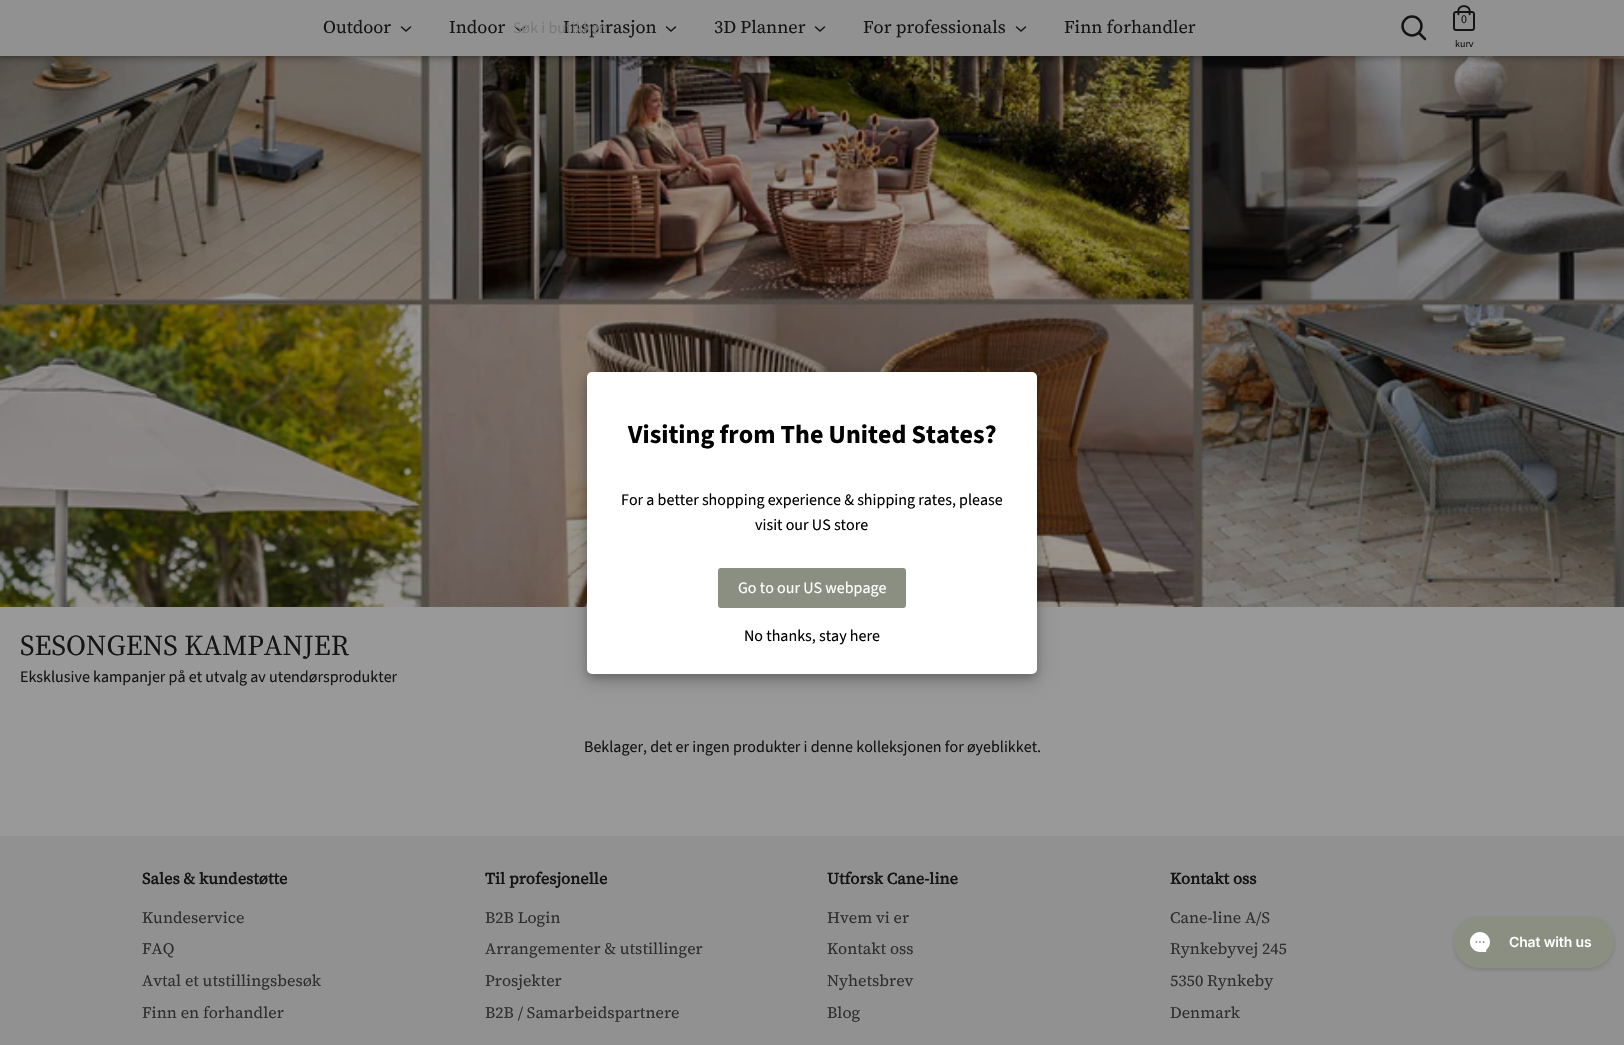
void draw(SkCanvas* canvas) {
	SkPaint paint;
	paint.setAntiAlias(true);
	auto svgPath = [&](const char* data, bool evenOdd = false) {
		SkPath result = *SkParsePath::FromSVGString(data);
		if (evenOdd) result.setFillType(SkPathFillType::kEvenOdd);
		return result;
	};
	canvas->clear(0xff999999);
	canvas->drawImageRect(SkImages::DeferredFromEncodedData(SkData::MakeFromFileName("img2.png")), SkRect::MakeXYWH(0, 56, 1624, 551), SkSamplingOptions());
	paint.setColor(0xbf000000);
	paint.setMaskFilter(SkMaskFilter::MakeBlur(kNormal_SkBlurStyle, 5));
	canvas->drawRect(SkRect::MakeXYWH(0, -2, 1624, 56), paint);
	paint.setMaskFilter(nullptr);
	paint.setColor(0xff919191);
	canvas->drawRect(SkRect::MakeXYWH(0, 0, 1624, 56), paint);
	paint.setStroke(true);
	paint.setStrokeWidth(1.5);
	paint.setStrokeCap(SkPaint::kRound_Cap);
	paint.setColor(0xff141414);
	canvas->drawPath(svgPath("M515.5 27L520 31L524.5 27"), paint);
	SkFont f1(fontMgr->matchFamilyStyle("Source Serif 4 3", SkFontStyle::Normal()), 18);
	f1.setSubpixel(true);
	paint.setStroke(false);
	canvas->drawString("Inspirasjon", 563, 33, f1, paint);
	SkFont f2(fontMgr->matchFamilyStyle("Source Sans Pro", SkFontStyle::Normal()), 16);
	f2.setSubpixel(true);
	paint.setColor(0xff7a7a7a);
	canvas->drawString("Søk i butikken", 513, 33, f2, paint);
	paint.setStroke(true);
	paint.setStrokeWidth(2.5);
	paint.setStrokeCap(SkPaint::kButt_Cap);
	paint.setColor(0xff141414);
	canvas->drawCircle(1412, 26, 9.5, paint);
	paint.setStrokeCap(SkPaint::kRound_Cap);
	canvas->drawPath(svgPath("M1425 39L1419 33"), paint);
	canvas->drawImageRect(SkImages::DeferredFromEncodedData(SkData::MakeFromFileName("img1.png")), SkRect::MakeXYWH(1453, 5, 22, 26), SkSamplingOptions());
	SkFont f3(fontMgr->matchFamilyStyle("Source Sans Pro", SkFontStyle::Normal()), 12);
	f3.setSubpixel(true);
	paint.setStroke(false);
	canvas->drawString("0", 1461, 23, f3, paint);
	SkFont f4(fontMgr->matchFamilyStyle("Source Sans Pro", SkFontStyle::Normal()), 10);
	f4.setSubpixel(true);
	canvas->drawString("kurv", 1455, 47, f4, paint);
	canvas->drawString("Outdoor", 323, 33, f1, paint);
	paint.setStroke(true);
	paint.setStrokeWidth(1.5);
	canvas->drawPath(svgPath("M401.5 27L406 31L410.5 27"), paint);
	paint.setStroke(false);
	canvas->drawString("Indoor", 449, 33, f1, paint);
	paint.setStroke(true);
	canvas->drawPath(svgPath("M666.5 27L671 31L675.5 27"), paint);
	paint.setStroke(false);
	canvas->drawString("3D Planner", 714, 33, f1, paint);
	paint.setStroke(true);
	canvas->drawPath(svgPath("M815.5 27L820 31L824.5 27"), paint);
	paint.setStroke(false);
	canvas->drawString("For professionals", 863, 33, f1, paint);
	paint.setStroke(true);
	canvas->drawPath(svgPath("M1016.5 27L1021 31L1025.5 27"), paint);
	paint.setStroke(false);
	canvas->drawString("Finn forhandler", 1064, 33, f1, paint);
	paint.setColor(0x30000000);
	paint.setMaskFilter(SkMaskFilter::MakeBlur(kNormal_SkBlurStyle, 10));
	canvas->drawRoundRect(SkRect::MakeXYWH(587, 378, 450, 302), 5, 5, paint);
	paint.setMaskFilter(nullptr);
	paint.setColor(0x33000000);
	paint.setMaskFilter(SkMaskFilter::MakeBlur(kNormal_SkBlurStyle, 4));
	canvas->drawRoundRect(SkRect::MakeXYWH(587, 376, 450, 302), 5, 5, paint);
	paint.setMaskFilter(nullptr);
	paint.setColor(0xffffffff);
	canvas->drawRoundRect(SkRect::MakeXYWH(587, 372, 450, 302), 5, 5, paint);
	SkFont f5(fontMgr->matchFamilyStyle("Source Sans Pro", SkFontStyle::Bold()), 26);
	f5.setSubpixel(true);
	paint.setColor(0xff000000);
	canvas->drawString("Visiting from The United States?", 628, 443, f5, paint);
	canvas->drawString("For a better shopping experience & shipping rates, please", 621, 505, f2, paint);
	canvas->drawString("visit our US store", 755, 530, f2, paint);
	paint.setColor(0xff8a8f81);
	canvas->drawRoundRect(SkRect::MakeXYWH(718, 568, 188, 40), 3, 3, paint);
	paint.setColor(0xffffffff);
	canvas->drawString("Go to our US webpage", 738, 593, f2, paint);
	paint.setColor(0xff000000);
	canvas->drawString("No thanks, stay here", 744, 641, f2, paint);
	SkFont f6(fontMgr->matchFamilyStyle("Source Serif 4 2", SkFontStyle::Normal()), 28.75);
	f6.setSubpixel(true);
	paint.setColor(0xff141414);
	canvas->drawString("SESONGENS KAMPANJER", 20, 655, f6, paint);
	canvas->drawString("Eksklusive kampanjer på et utvalg av utendørsprodukter", 20, 682, f2, paint);
	canvas->drawString("Beklager, det er ingen produkter i denne kolleksjonen for øyeblikket.", 584, 752, f2, paint);
	paint.setColor(0xff919191);
	canvas->drawRect(SkRect::MakeXYWH(0, 836, 1624, 209), paint);
	SkFont f7(fontMgr->matchFamilyStyle("Source Serif 4", SkFontStyle::Bold()), 16);
	f7.setSubpixel(true);
	paint.setColor(0xff141414);
	canvas->drawString("Sales & kundestøtte", 142, 884, f7, paint);
	SkFont f8(fontMgr->matchFamilyStyle("Source Serif 4", SkFontStyle::Normal()), 16);
	f8.setSubpixel(true);
	paint.setColor(0xff2e2e2e);
	canvas->drawString("Kundeservice", 142, 923, f8, paint);
	canvas->drawString("FAQ", 142, 954, f8, paint);
	canvas->drawString("Avtal et utstillingsbesøk", 142, 986, f8, paint);
	canvas->drawString("Finn en forhandler", 142, 1018, f8, paint);
	paint.setColor(0xff141414);
	canvas->drawString("Til profesjonelle", 485, 884, f7, paint);
	paint.setColor(0xff2e2e2e);
	canvas->drawString("B2B Login", 485, 923, f8, paint);
	canvas->drawString("Arrangementer & utstillinger", 485, 954, f8, paint);
	canvas->drawString("Prosjekter", 485, 986, f8, paint);
	canvas->drawString("B2B / Samarbeidspartnere", 485, 1018, f8, paint);
	paint.setColor(0xff141414);
	canvas->drawString("Utforsk Cane-line", 827, 884, f7, paint);
	paint.setColor(0xff2e2e2e);
	canvas->drawString("Hvem vi er", 827, 923, f8, paint);
	canvas->drawString("Kontakt oss", 827, 954, f8, paint);
	canvas->drawString("Nyhetsbrev", 827, 986, f8, paint);
	canvas->drawString("Blog", 827, 1018, f8, paint);
	paint.setColor(0xff141414);
	canvas->drawString("Kontakt oss", 1170, 884, f7, paint);
	paint.setColor(0xff2e2e2e);
	canvas->drawString("Cane-line A/S", 1170, 923, f8, paint);
	canvas->drawString("Rynkebyvej 245", 1170, 954, f8, paint);
	canvas->drawString("5350 Rynkeby", 1170, 986, f8, paint);
	canvas->drawString("Denmark", 1170, 1018, f8, paint);
	canvas->drawImageRect(SkImages::DeferredFromEncodedData(SkData::MakeFromFileName("img3.png")), SkRect::MakeXYWH(1452, 916, 164, 56), SkSamplingOptions());
}
